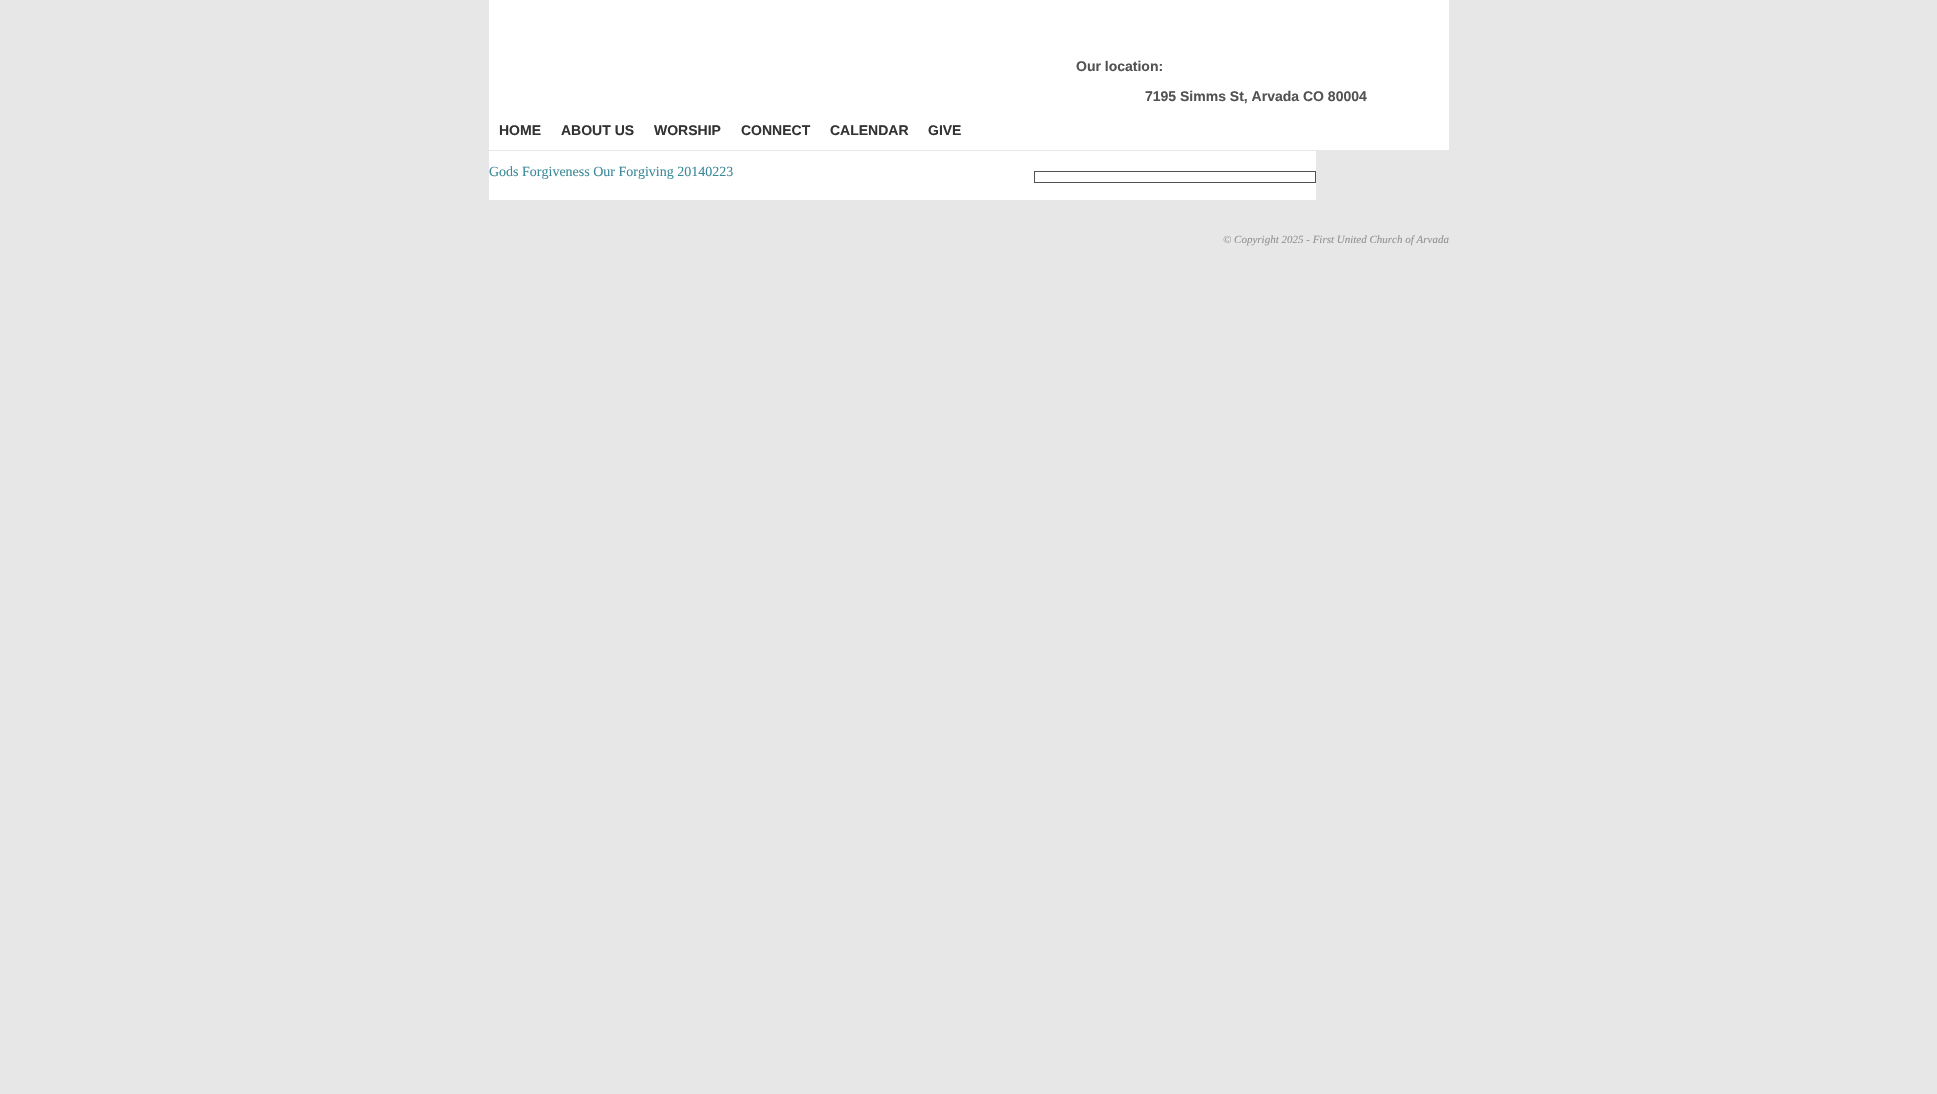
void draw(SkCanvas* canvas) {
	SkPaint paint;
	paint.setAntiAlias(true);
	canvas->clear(0xffe7e7e7);
	paint.setColor(0xffffffff);
	canvas->drawRect(SkRect::MakeXYWH(489, 0, 960, 150), paint);
	SkFont f1(fontMgr->matchFamilyStyle("Liberation Sans", SkFontStyle::Bold()), 14);
	f1.setSubpixel(true);
	paint.setColor(0xff525252);
	canvas->drawString("Our location:", 1076, 71, f1, paint);
	canvas->drawString("7195 Simms St, Arvada CO 80004", 1145, 101, f1, paint);
	paint.setColor(0xff333333);
	canvas->drawString("HOME", 499, 135, f1, paint);
	canvas->drawString("ABOUT US", 561, 135, f1, paint);
	canvas->drawString("WORSHIP", 654, 135, f1, paint);
	canvas->drawString("CONNECT", 741, 135, f1, paint);
	canvas->drawString("CALENDAR", 830, 135, f1, paint);
	canvas->drawString("GIVE", 928, 135, f1, paint);
	paint.setColor(0xffffffff);
	canvas->drawRect(SkRect::MakeXYWH(489, 151, 827, 49), paint);
	SkFont f2(fontMgr->matchFamilyStyle("Liberation Serif", SkFontStyle::Normal()), 14);
	f2.setSubpixel(true);
	paint.setColor(0xff3b8a99);
	canvas->drawString("Gods Forgiveness Our Forgiving 20140223", 489, 176, f2, paint);
	paint.setStroke(true);
	paint.setStrokeWidth(1);
	paint.setColor(0xff525252);
	canvas->drawRect(SkRect::MakeXYWH(1034.5, 171.5, 281, 11), paint);
	SkFont f3(fontMgr->matchFamilyStyle("Liberation Serif", SkFontStyle::Italic()), 11);
	f3.setSubpixel(true);
	paint.setStroke(false);
	paint.setColor(0xff919191);
	canvas->drawString("© Copyright 2025 - First United Church of Arvada", 1223, 243, f3, paint);
}
